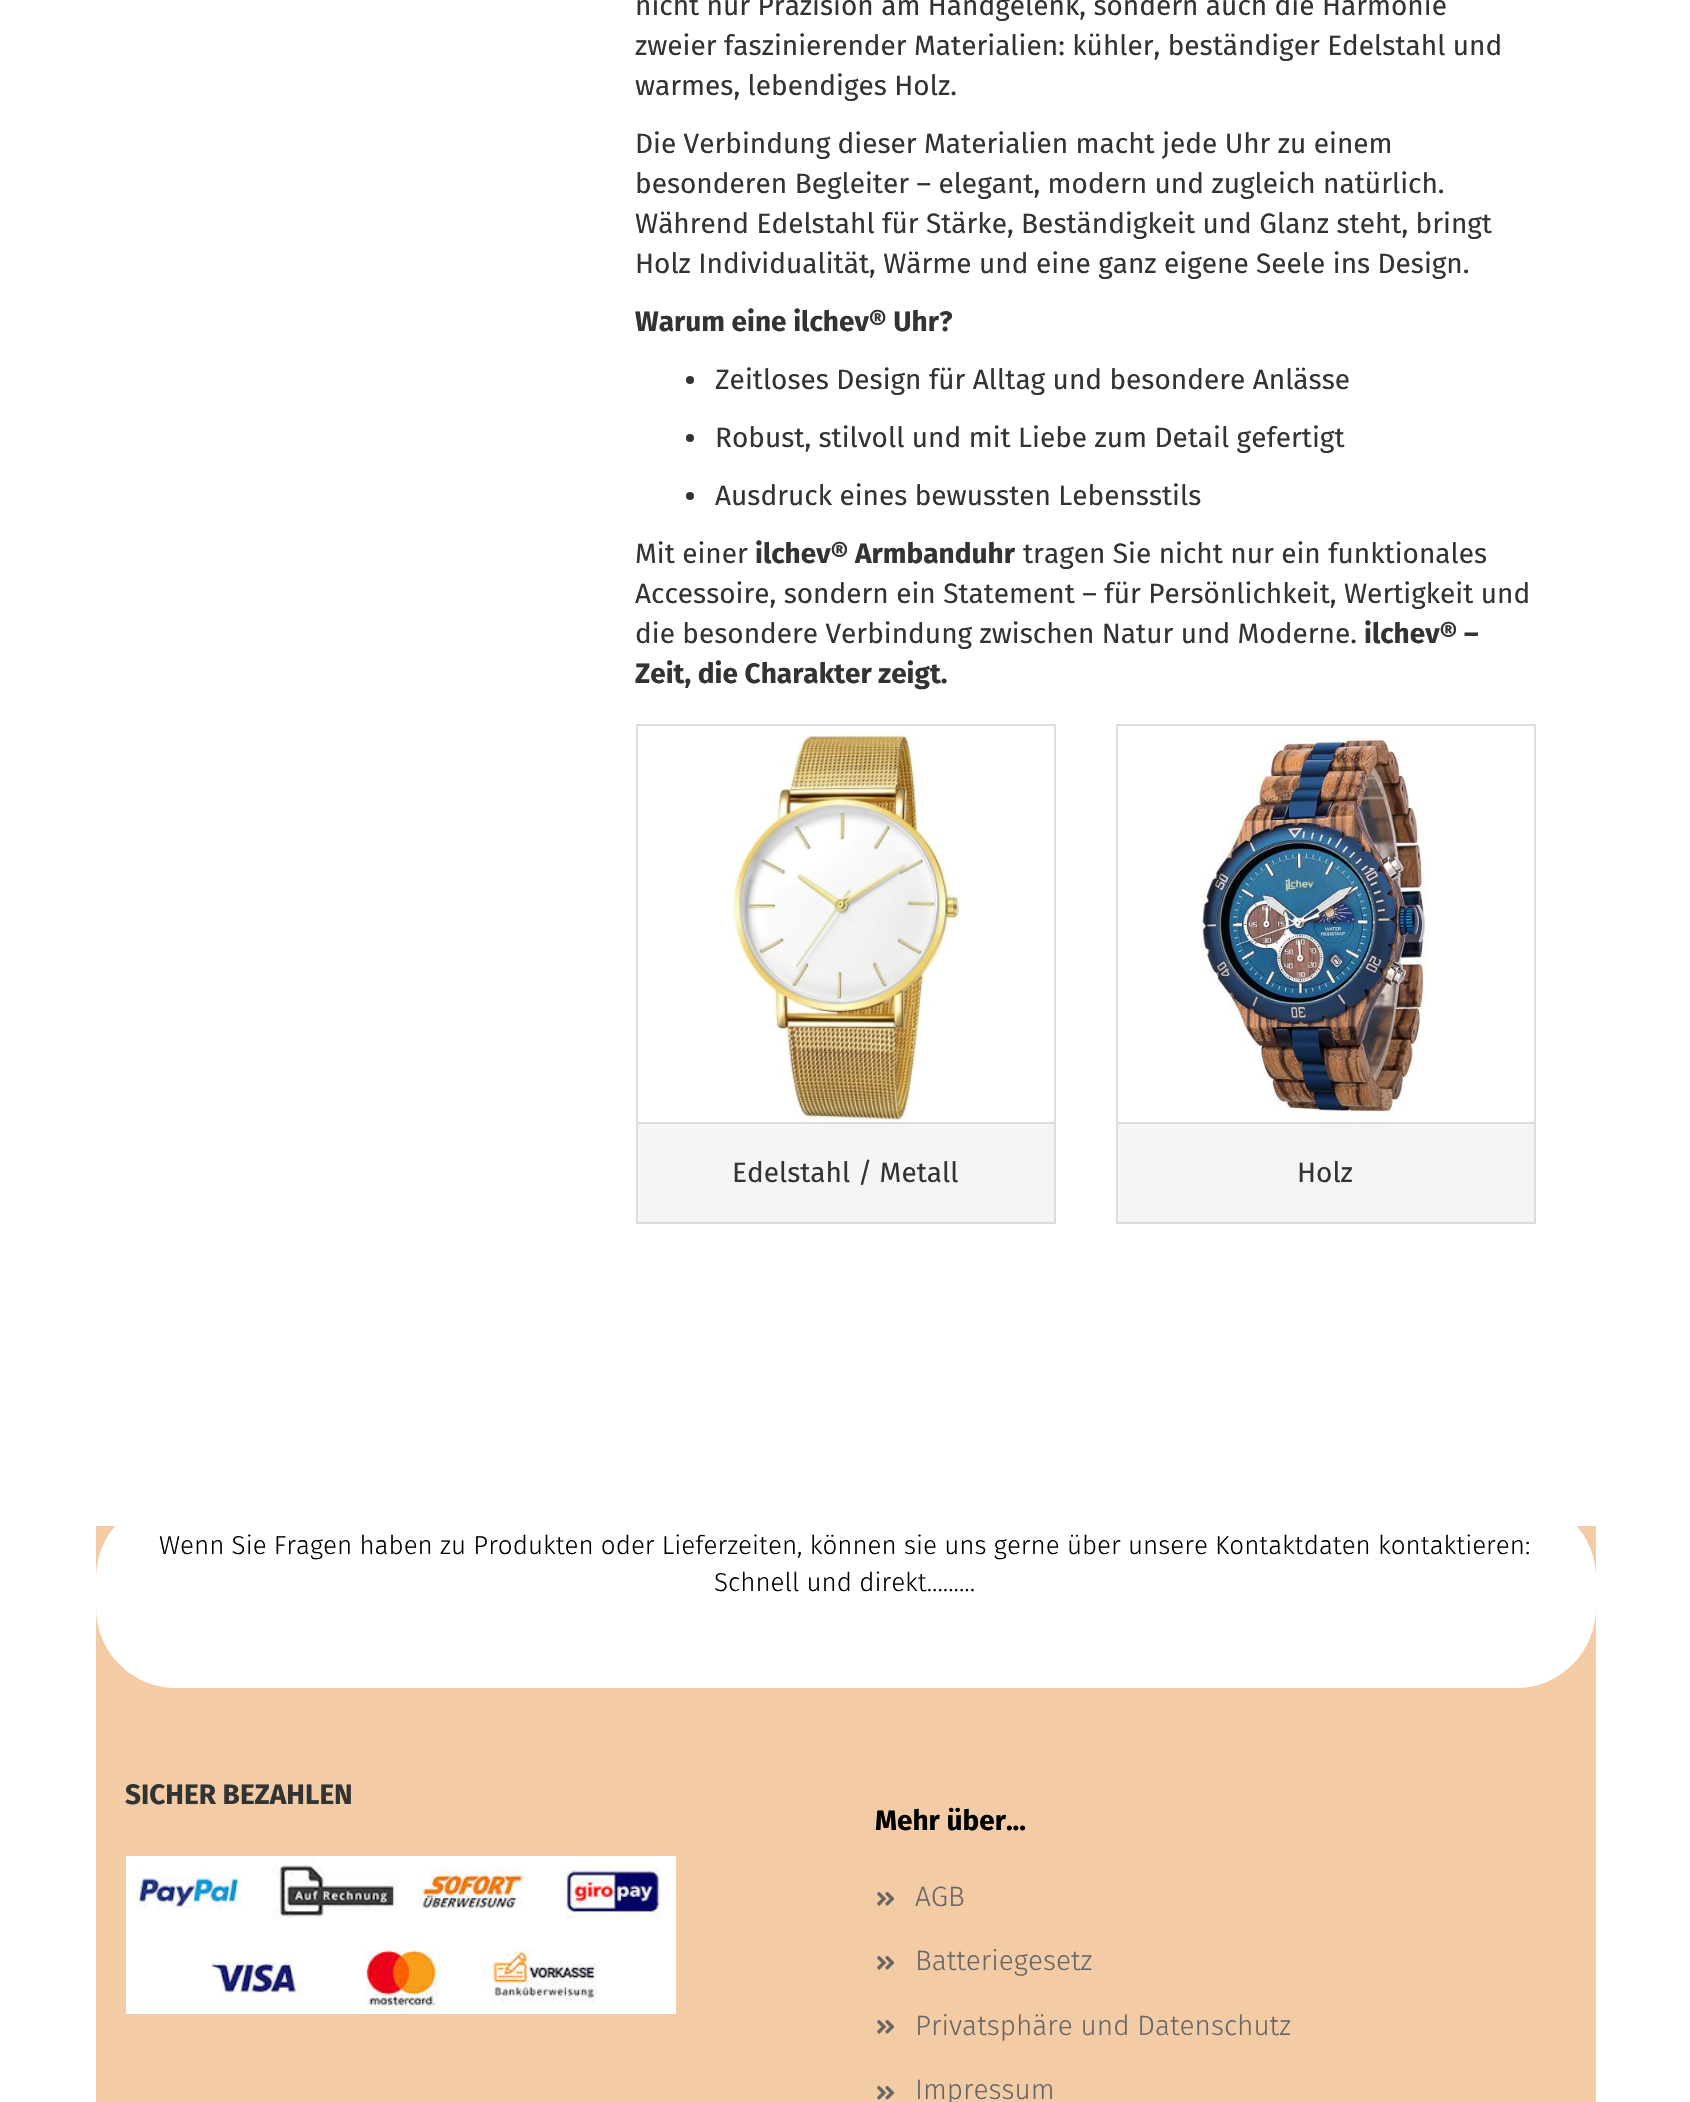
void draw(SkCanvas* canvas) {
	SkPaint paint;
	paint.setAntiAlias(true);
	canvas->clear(0xffffffff);
	SkFont f1(fontMgr->matchFamilyStyle("Fira Sans", SkFontStyle::Normal()), 28);
	f1.setSubpixel(true);
	paint.setColor(0xff333333);
	canvas->drawString("nicht nur Präzision am Handgelenk, sondern auch die Harmonie", 635, 15, f1, paint);
	canvas->drawString("zweier faszinierender Materialien: kühler, beständiger Edelstahl und", 635, 55, f1, paint);
	canvas->drawString("warmes, lebendiges Holz.", 635, 95, f1, paint);
	canvas->drawString("Die Verbindung dieser Materialien macht jede Uhr zu einem", 635, 153, f1, paint);
	canvas->drawString("besonderen Begleiter – elegant, modern und zugleich natürlich.", 635, 193, f1, paint);
	canvas->drawString("Während Edelstahl für Stärke, Beständigkeit und Glanz steht, bringt", 635, 233, f1, paint);
	canvas->drawString("Holz Individualität, Wärme und eine ganz eigene Seele ins Design.", 635, 273, f1, paint);
	SkFont f2(fontMgr->matchFamilyStyle("Fira Sans", SkFontStyle::Bold()), 28);
	f2.setSubpixel(true);
	canvas->drawString("Warum eine ilchev® Uhr?", 635, 331, f2, paint);
	canvas->drawCircle(690, 380, 4, paint);
	canvas->drawString("Zeitloses Design für Alltag und besondere Anlässe", 715, 389, f1, paint);
	canvas->drawCircle(690, 438, 4, paint);
	canvas->drawString("Robust, stilvoll und mit Liebe zum Detail gefertigt", 715, 447, f1, paint);
	canvas->drawCircle(690, 496, 4, paint);
	canvas->drawString("Ausdruck eines bewussten Lebensstils", 715, 505, f1, paint);
	canvas->drawString("Mit einer", 635, 563, f1, paint);
	canvas->drawString("ilchev® Armbanduhr", 755, 563, f2, paint);
	canvas->drawString("tragen Sie nicht nur ein funktionales", 1023, 563, f1, paint);
	canvas->drawString("Accessoire, sondern ein Statement – für Persönlichkeit, Wertigkeit und", 635, 603, f1, paint);
	canvas->drawString("die besondere Verbindung zwischen Natur und Moderne.", 635, 643, f1, paint);
	canvas->drawString("ilchev® –", 1364, 643, f2, paint);
	canvas->drawString("Zeit, die Charakter zeigt.", 635, 683, f2, paint);
	paint.setStroke(true);
	paint.setStrokeWidth(2);
	paint.setColor(0xffdddddd);
	canvas->drawRect(SkRect::MakeXYWH(637, 725, 418, 398), paint);
	canvas->drawImageRect(SkImages::DeferredFromEncodedData(SkData::MakeFromFileName("img1.png")), SkRect::MakeXYWH(731, 734, 229, 388), SkSamplingOptions());
	paint.setStroke(false);
	paint.setColor(0xfff5f5f5);
	canvas->drawRect(SkRect::MakeXYWH(638, 1124, 416, 98), paint);
	paint.setColor(0xffdddddd);
	canvas->drawRect(SkRect::MakeXYWH(1054, 1124, 2, 100), paint);
	canvas->drawRect(SkRect::MakeXYWH(636, 1222, 420, 2), paint);
	canvas->drawRect(SkRect::MakeXYWH(636, 1124, 2, 100), paint);
	paint.setColor(0xff333333);
	canvas->drawString("Edelstahl / Metall", 732, 1182, f1, paint);
	paint.setStroke(true);
	paint.setColor(0xffdddddd);
	canvas->drawRect(SkRect::MakeXYWH(1117, 725, 418, 398), paint);
	canvas->drawImageRect(SkImages::DeferredFromEncodedData(SkData::MakeFromFileName("img2.png")), SkRect::MakeXYWH(1202, 736, 225, 385), SkSamplingOptions());
	paint.setStroke(false);
	paint.setColor(0xfff5f5f5);
	canvas->drawRect(SkRect::MakeXYWH(1118, 1124, 416, 98), paint);
	paint.setColor(0xffdddddd);
	canvas->drawRect(SkRect::MakeXYWH(1534, 1124, 2, 100), paint);
	canvas->drawRect(SkRect::MakeXYWH(1116, 1222, 420, 2), paint);
	canvas->drawRect(SkRect::MakeXYWH(1116, 1124, 2, 100), paint);
	paint.setColor(0xff333333);
	canvas->drawString("Holz", 1297, 1182, f1, paint);
	paint.setColor(0xfff3cba5);
	canvas->drawRect(SkRect::MakeXYWH(96, 1526, 1500, 576), paint);
	paint.setColor(0xffffffff);
	canvas->drawRoundRect(SkRect::MakeXYWH(96, 1498, 1500, 190), 80, 80, paint);
	SkFont f3(fontMgr->matchFamilyStyle("Fira Sans", SkFontStyle(300, SkFontStyle::kNormal_Width, SkFontStyle::kUpright_Slant)), 26);
	f3.setSubpixel(true);
	paint.setColor(0xff000000);
	canvas->drawString("Wenn Sie Fragen haben zu Produkten oder Lieferzeiten, können sie uns gerne über unsere Kontaktdaten kontaktieren:", 159, 1554, f3, paint);
	canvas->drawString("Schnell und direkt.........", 714, 1591, f3, paint);
	paint.setColor(0xff333333);
	canvas->drawString("SICHER BEZAHLEN", 125, 1804, f2, paint);
	canvas->drawImageRect(SkImages::DeferredFromEncodedData(SkData::MakeFromFileName("img3.png")), SkRect::MakeXYWH(126, 1856, 550, 158), SkSamplingOptions());
	paint.setColor(0xff000000);
	canvas->drawString("Mehr über...", 875, 1830, f2, paint);
	canvas->drawImageRect(SkImages::DeferredFromEncodedData(SkData::MakeFromFileName("img4.png")), SkRect::MakeXYWH(877, 1891, 18, 15), SkSamplingOptions());
	SkFont f4(fontMgr->matchFamilyStyle("Fira Sans", SkFontStyle(300, SkFontStyle::kNormal_Width, SkFontStyle::kUpright_Slant)), 28);
	f4.setSubpixel(true);
	paint.setColor(0xff666666);
	canvas->drawString("AGB", 915, 1906, f4, paint);
	canvas->drawImageRect(SkImages::DeferredFromEncodedData(SkData::MakeFromFileName("img4.png")), SkRect::MakeXYWH(877, 1955, 18, 15), SkSamplingOptions());
	canvas->drawString("Batteriegesetz", 915, 1970, f4, paint);
	canvas->drawImageRect(SkImages::DeferredFromEncodedData(SkData::MakeFromFileName("img4.png")), SkRect::MakeXYWH(877, 2019, 18, 15), SkSamplingOptions());
	canvas->drawString("Privatsphäre und Datenschutz", 915, 2035, f4, paint);
	canvas->drawImageRect(SkImages::DeferredFromEncodedData(SkData::MakeFromFileName("img4.png")), SkRect::MakeXYWH(877, 2085, 18, 15), SkSamplingOptions());
	canvas->drawString("Impressum", 915, 2099, f4, paint);
}
